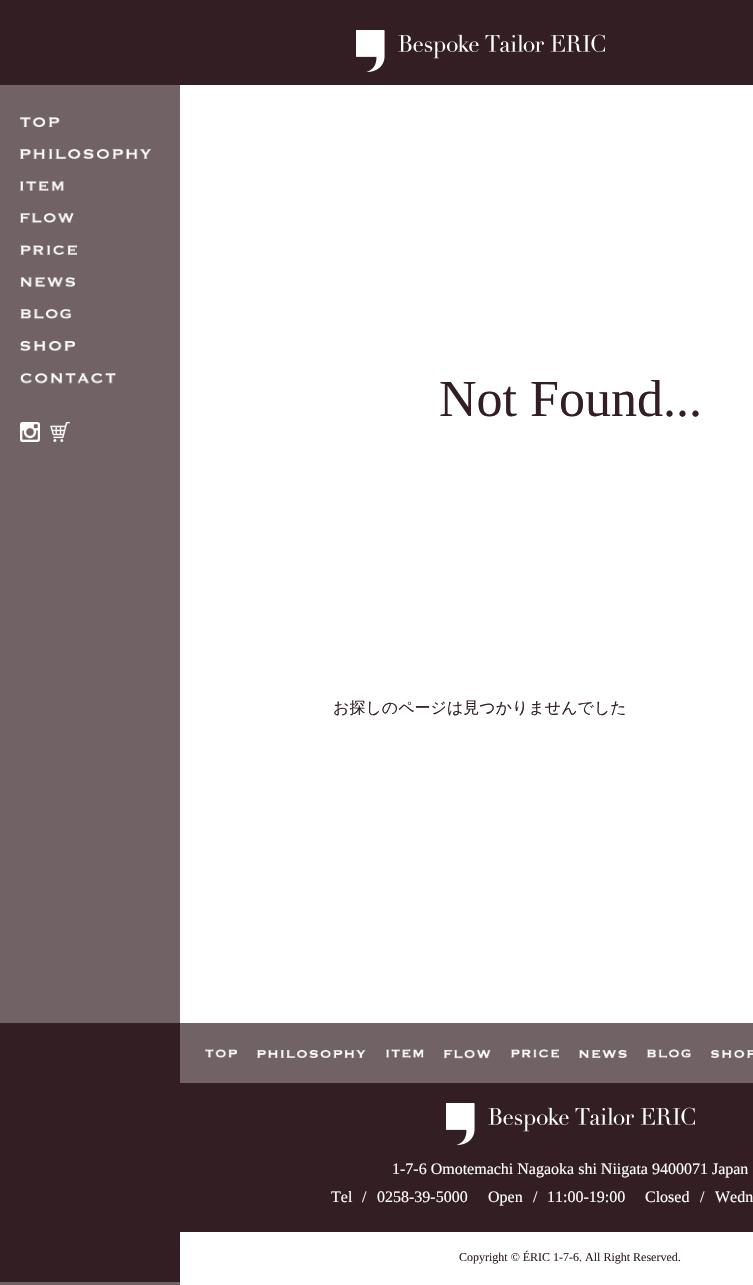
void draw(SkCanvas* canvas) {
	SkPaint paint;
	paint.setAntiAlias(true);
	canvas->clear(0xffffffff);
	paint.setColor(0xff706265);
	canvas->drawRect(SkRect::MakeXYWH(0, 85, 180, 1200), paint);
	paint.setColor(0xff331e23);
	canvas->drawRect(SkRect::MakeXYWH(0, 0, 753, 85), paint);
	canvas->drawImageRect(SkImages::DeferredFromEncodedData(SkData::MakeFromFileName("img1.png")), SkRect::MakeXYWH(356, 30, 249, 42), SkSamplingOptions());
	canvas->drawImageRect(SkImages::DeferredFromEncodedData(SkData::MakeFromFileName("img2.png")), SkRect::MakeXYWH(20, 117, 40, 10), SkSamplingOptions());
	canvas->drawImageRect(SkImages::DeferredFromEncodedData(SkData::MakeFromFileName("img3.png")), SkRect::MakeXYWH(20, 149, 131, 10), SkSamplingOptions());
	canvas->drawImageRect(SkImages::DeferredFromEncodedData(SkData::MakeFromFileName("img4.png")), SkRect::MakeXYWH(20, 181, 44, 10), SkSamplingOptions());
	canvas->drawImageRect(SkImages::DeferredFromEncodedData(SkData::MakeFromFileName("img5.png")), SkRect::MakeXYWH(20, 213, 54, 10), SkSamplingOptions());
	canvas->drawImageRect(SkImages::DeferredFromEncodedData(SkData::MakeFromFileName("img6.png")), SkRect::MakeXYWH(20, 245, 57, 10), SkSamplingOptions());
	canvas->drawImageRect(SkImages::DeferredFromEncodedData(SkData::MakeFromFileName("img7.png")), SkRect::MakeXYWH(20, 277, 55, 10), SkSamplingOptions());
	canvas->drawImageRect(SkImages::DeferredFromEncodedData(SkData::MakeFromFileName("img8.png")), SkRect::MakeXYWH(20, 309, 52, 10), SkSamplingOptions());
	canvas->drawImageRect(SkImages::DeferredFromEncodedData(SkData::MakeFromFileName("img9.png")), SkRect::MakeXYWH(20, 341, 55, 10), SkSamplingOptions());
	canvas->drawImageRect(SkImages::DeferredFromEncodedData(SkData::MakeFromFileName("img10.png")), SkRect::MakeXYWH(20, 373, 96, 11), SkSamplingOptions());
	canvas->drawImageRect(SkImages::DeferredFromEncodedData(SkData::MakeFromFileName("img11.png")), SkRect::MakeXYWH(20, 422, 20, 20), SkSamplingOptions());
	canvas->drawImageRect(SkImages::DeferredFromEncodedData(SkData::MakeFromFileName("img12.png")), SkRect::MakeXYWH(50, 422, 20, 20), SkSamplingOptions());
	SkFont f1(fontMgr->matchFamilyStyle("Liberation Serif", SkFontStyle::Normal()), 52);
	f1.setSubpixel(true);
	canvas->drawString("Not Found...", 439, 416, f1, paint);
	SkFont f2(fontMgr->matchFamilyStyle("WenQuanYi Zen Hei", SkFontStyle(500, SkFontStyle::kNormal_Width, SkFontStyle::kUpright_Slant)), 16);
	f2.setSubpixel(true);
	canvas->drawString("お探しのページは見つかりませんでした", 333, 713, f2, paint);
	canvas->drawRect(SkRect::MakeXYWH(180, 1083, 573, 149), paint);
	canvas->drawRect(SkRect::MakeXYWH(0, 1023, 180, 259), paint);
	paint.setColor(0xff706265);
	canvas->drawRect(SkRect::MakeXYWH(180, 1023, 573, 60), paint);
	canvas->drawImageRect(SkImages::DeferredFromEncodedData(SkData::MakeFromFileName("img13.png")), SkRect::MakeXYWH(205, 1049, 32, 9), SkSamplingOptions());
	canvas->drawImageRect(SkImages::DeferredFromEncodedData(SkData::MakeFromFileName("img14.png")), SkRect::MakeXYWH(257, 1050, 109, 8), SkSamplingOptions());
	canvas->drawImageRect(SkImages::DeferredFromEncodedData(SkData::MakeFromFileName("img15.png")), SkRect::MakeXYWH(386, 1049, 38, 9), SkSamplingOptions());
	canvas->drawImageRect(SkImages::DeferredFromEncodedData(SkData::MakeFromFileName("img16.png")), SkRect::MakeXYWH(444, 1049, 47, 10), SkSamplingOptions());
	canvas->drawImageRect(SkImages::DeferredFromEncodedData(SkData::MakeFromFileName("img17.png")), SkRect::MakeXYWH(511, 1049, 48, 9), SkSamplingOptions());
	canvas->drawImageRect(SkImages::DeferredFromEncodedData(SkData::MakeFromFileName("img18.png")), SkRect::MakeXYWH(579, 1050, 48, 8), SkSamplingOptions());
	canvas->drawImageRect(SkImages::DeferredFromEncodedData(SkData::MakeFromFileName("img19.png")), SkRect::MakeXYWH(647, 1049, 44, 9), SkSamplingOptions());
	canvas->drawImageRect(SkImages::DeferredFromEncodedData(SkData::MakeFromFileName("img20.png")), SkRect::MakeXYWH(711, 1050, 42, 8), SkSamplingOptions());
	canvas->drawImageRect(SkImages::DeferredFromEncodedData(SkData::MakeFromFileName("img1.png")), SkRect::MakeXYWH(446, 1103, 249, 42), SkSamplingOptions());
	SkFont f3(fontMgr->matchFamilyStyle("Liberation Serif", SkFontStyle::Normal()), 16);
	f3.setSubpixel(true);
	paint.setColor(0xffffffff);
	canvas->drawString("1-7-6 Omotemachi Nagaoka shi Niigata 9400071 Japan", 392, 1174, f3, paint);
	canvas->drawString("Tel", 331, 1202, f3, paint);
	canvas->drawString("/", 362, 1202, f3, paint);
	canvas->drawString("0258-39-5000", 377, 1202, f3, paint);
	canvas->drawString("Open", 488, 1202, f3, paint);
	canvas->drawString("/", 533, 1202, f3, paint);
	canvas->drawString("11:00-19:00", 547, 1202, f3, paint);
	canvas->drawString("Closed", 645, 1202, f3, paint);
	canvas->drawString("/", 700, 1202, f3, paint);
	canvas->drawString("Wedn", 715, 1202, f3, paint);
	SkFont f4(fontMgr->matchFamilyStyle("Liberation Serif", SkFontStyle::Normal()), 12);
	f4.setSubpixel(true);
	paint.setColor(0xff331e23);
	canvas->drawString("Copyright © ÉRIC 1-7-6. All Right Reserved.", 459, 1261, f4, paint);
}
